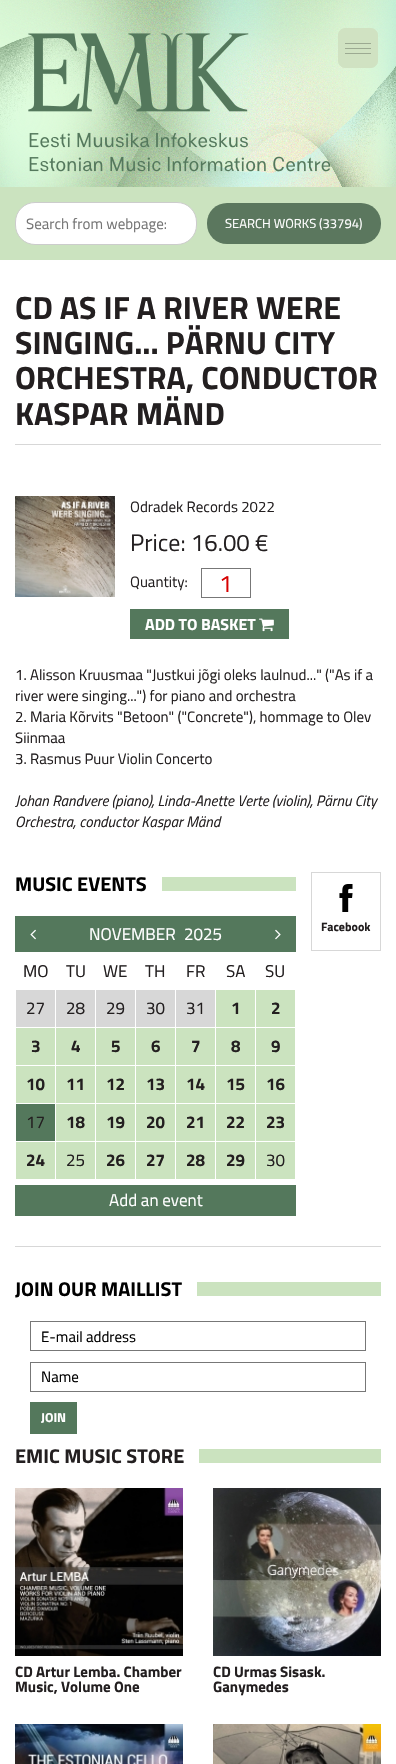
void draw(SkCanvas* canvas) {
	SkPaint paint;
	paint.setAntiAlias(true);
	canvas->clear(0xffffffff);
	canvas->drawImageRect(SkImages::DeferredFromEncodedData(SkData::MakeFromFileName("img1.png")), SkRect::MakeXYWH(0, 0, 396, 187), SkSamplingOptions());
	canvas->drawImageRect(SkImages::DeferredFromEncodedData(SkData::MakeFromFileName("img2.png")), SkRect::MakeXYWH(28, 33, 303, 139), SkSamplingOptions());
	paint.setColor(0xffd0e2c2);
	canvas->drawRoundRect(SkRect::MakeXYWH(338.5, 28.5, 39, 39), 6.5, 6.5, paint);
	paint.setStroke(true);
	paint.setStrokeWidth(1);
	canvas->drawRoundRect(SkRect::MakeXYWH(338.5, 28.5, 39, 39), 6.5, 6.5, paint);
	paint.setStroke(false);
	paint.setColor(0xff9caa92);
	canvas->drawRect(SkRect::MakeXYWH(345, 43, 26, 1), paint);
	canvas->drawRect(SkRect::MakeXYWH(345, 48, 26, 1), paint);
	canvas->drawRect(SkRect::MakeXYWH(345, 53, 26, 1), paint);
	paint.setColor(0xffcbe3bf);
	canvas->drawRect(SkRect::MakeXYWH(0, 187, 396, 73), paint);
	paint.setColor(0xffffffff);
	canvas->drawRoundRect(SkRect::MakeXYWH(15.5, 202.5, 181, 42), 19.5, 19.5, paint);
	paint.setStroke(true);
	paint.setColor(0xffcccccc);
	canvas->drawRoundRect(SkRect::MakeXYWH(15.5, 202.5, 181, 42), 19.5, 19.5, paint);
	SkFont f1(fontMgr->matchFamilyStyle("Titillium Web", SkFontStyle::Normal()), 15);
	f1.setSubpixel(true);
	paint.setStroke(false);
	paint.setColor(0xff757575);
	canvas->drawString("Search from webpage:", 26, 229, f1, paint);
	paint.setColor(0xff5b775e);
	canvas->drawRoundRect(SkRect::MakeXYWH(207, 203, 174, 41), 20, 20, paint);
	SkFont f2(fontMgr->matchFamilyStyle("Titillium Web", SkFontStyle::Normal()), 13);
	f2.setSubpixel(true);
	paint.setColor(0xffffffff);
	canvas->drawString("SEARCH WORKS (33794)", 225, 228, f2, paint);
	paint.setColor(0xffd7d7d7);
	canvas->drawRect(SkRect::MakeXYWH(15, 444, 366, 1), paint);
	SkFont f3(fontMgr->matchFamilyStyle("Titillium Web", SkFontStyle::Bold()), 32);
	f3.setSubpixel(true);
	paint.setColor(0xff231f20);
	canvas->drawString("CD AS IF A RIVER WERE", 15, 319, f3, paint);
	canvas->drawString("SINGING... PÄRNU CITY", 15, 354, f3, paint);
	canvas->drawString("ORCHESTRA, CONDUCTOR", 15, 389, f3, paint);
	canvas->drawString("KASPAR MÄND", 15, 425, f3, paint);
	canvas->drawImageRect(SkImages::DeferredFromEncodedData(SkData::MakeFromFileName("img3.png")), SkRect::MakeXYWH(15, 496, 100, 101), SkSamplingOptions());
	canvas->drawString("Odradek Records 2022", 130, 512, f1, paint);
	SkFont f4(fontMgr->matchFamilyStyle("Titillium Web", SkFontStyle::Normal()), 24);
	f4.setSubpixel(true);
	canvas->drawString("Price: 16.00 €", 130, 551, f4, paint);
	canvas->drawString("Quantity:", 130, 587, f1, paint);
	paint.setStroke(true);
	paint.setColor(0xff777777);
	canvas->drawRect(SkRect::MakeXYWH(201.5, 568.5, 49, 29), paint);
	paint.setStroke(false);
	paint.setColor(0xffd60000);
	canvas->drawString("1", 219, 592, f4, paint);
	paint.setColor(0xff54785c);
	canvas->drawRect(SkRect::MakeXYWH(130, 609, 159, 30), paint);
	SkFont f5(fontMgr->matchFamilyStyle("Titillium Web", SkFontStyle::Bold()), 16);
	f5.setSubpixel(true);
	paint.setColor(0xffffffff);
	canvas->drawString("ADD TO BASKET", 145, 630, f5, paint);
	canvas->drawImageRect(SkImages::DeferredFromEncodedData(SkData::MakeFromFileName("img4.png")), SkRect::MakeXYWH(259, 618, 15, 14), SkSamplingOptions());
	paint.setColor(0xff231f20);
	canvas->drawString("1. Alisson Kruusmaa \"Justkui jõgi oleks laulnud...\" (\"As if a", 15, 680, f1, paint);
	canvas->drawString("river were singing...\") for piano and orchestra", 15, 701, f1, paint);
	canvas->drawString("2. Maria Kõrvits \"Betoon\" (\"Concrete\"), hommage to Olev", 15, 722, f1, paint);
	canvas->drawString("Siinmaa", 15, 743, f1, paint);
	canvas->drawString("3. Rasmus Puur Violin Concerto", 15, 764, f1, paint);
	SkFont f6(fontMgr->matchFamilyStyle("Titillium Web", SkFontStyle::Italic()), 15);
	f6.setSubpixel(true);
	canvas->drawString("Johan Randvere (piano), Linda-Anette Verte (violin), Pärnu City", 15, 806, f6, paint);
	canvas->drawString("Orchestra, conductor Kaspar Mänd", 15, 827, f6, paint);
	SkFont f7(fontMgr->matchFamilyStyle("Titillium Web", SkFontStyle::Bold()), 20);
	f7.setSubpixel(true);
	paint.setColor(0xff000000);
	canvas->drawString("MUSIC EVENTS", 15, 891, f7, paint);
	paint.setColor(0xffcbe3bf);
	canvas->drawRect(SkRect::MakeXYWH(162, 877, 134, 14), paint);
	paint.setColor(0xff54785c);
	canvas->drawRect(SkRect::MakeXYWH(15, 916, 281, 36), paint);
	canvas->drawImageRect(SkImages::DeferredFromEncodedData(SkData::MakeFromFileName("img5.png")), SkRect::MakeXYWH(30, 929, 6, 11), SkSamplingOptions());
	SkFont f8(fontMgr->matchFamilyStyle("Cairo", SkFontStyle::Normal()), 17);
	f8.setSubpixel(true);
	paint.setColor(0xffffffff);
	canvas->drawString("NOVEMBER", 89, 940, f8, paint);
	canvas->drawString("2025", 184, 940, f8, paint);
	canvas->drawImageRect(SkImages::DeferredFromEncodedData(SkData::MakeFromFileName("img6.png")), SkRect::MakeXYWH(275, 929, 6, 11), SkSamplingOptions());
	paint.setColor(0xff231f20);
	canvas->drawString("MO", 23, 977, f8, paint);
	canvas->drawString("TU", 66, 977, f8, paint);
	canvas->drawString("WE", 103, 977, f8, paint);
	canvas->drawString("TH", 145, 977, f8, paint);
	canvas->drawString("FR", 186, 977, f8, paint);
	canvas->drawString("SA", 226, 977, f8, paint);
	canvas->drawString("SU", 265, 977, f8, paint);
	paint.setColor(0xffd7d7d7);
	canvas->drawRect(SkRect::MakeXYWH(16, 990, 39, 37), paint);
	paint.setColor(0xff231f20);
	canvas->drawString("27", 26, 1014, f8, paint);
	paint.setColor(0xffd7d7d7);
	canvas->drawRect(SkRect::MakeXYWH(56, 990, 39, 37), paint);
	paint.setColor(0xff231f20);
	canvas->drawString("28", 66, 1014, f8, paint);
	paint.setColor(0xffd7d7d7);
	canvas->drawRect(SkRect::MakeXYWH(96, 990, 39, 37), paint);
	paint.setColor(0xff231f20);
	canvas->drawString("29", 106, 1014, f8, paint);
	paint.setColor(0xffd7d7d7);
	canvas->drawRect(SkRect::MakeXYWH(136, 990, 39, 37), paint);
	paint.setColor(0xff231f20);
	canvas->drawString("30", 146, 1014, f8, paint);
	paint.setColor(0xffd7d7d7);
	canvas->drawRect(SkRect::MakeXYWH(176, 990, 39, 37), paint);
	paint.setColor(0xff231f20);
	canvas->drawString("31", 186, 1014, f8, paint);
	paint.setColor(0xffcbe3bf);
	canvas->drawRect(SkRect::MakeXYWH(216, 990, 39, 37), paint);
	SkFont f9(fontMgr->matchFamilyStyle("Cairo", SkFontStyle::Bold()), 17);
	f9.setSubpixel(true);
	paint.setColor(0xff231f20);
	canvas->drawString("1", 231, 1014, f9, paint);
	paint.setColor(0xffcbe3bf);
	canvas->drawRect(SkRect::MakeXYWH(256, 990, 39, 37), paint);
	paint.setColor(0xff231f20);
	canvas->drawString("2", 271, 1014, f9, paint);
	paint.setColor(0xffcbe3bf);
	canvas->drawRect(SkRect::MakeXYWH(16, 1028, 39, 37), paint);
	paint.setColor(0xff231f20);
	canvas->drawString("3", 31, 1052, f9, paint);
	paint.setColor(0xffcbe3bf);
	canvas->drawRect(SkRect::MakeXYWH(56, 1028, 39, 37), paint);
	paint.setColor(0xff231f20);
	canvas->drawString("4", 71, 1052, f9, paint);
	paint.setColor(0xffcbe3bf);
	canvas->drawRect(SkRect::MakeXYWH(96, 1028, 39, 37), paint);
	paint.setColor(0xff231f20);
	canvas->drawString("5", 111, 1052, f9, paint);
	paint.setColor(0xffcbe3bf);
	canvas->drawRect(SkRect::MakeXYWH(136, 1028, 39, 37), paint);
	paint.setColor(0xff231f20);
	canvas->drawString("6", 151, 1052, f9, paint);
	paint.setColor(0xffcbe3bf);
	canvas->drawRect(SkRect::MakeXYWH(176, 1028, 39, 37), paint);
	paint.setColor(0xff231f20);
	canvas->drawString("7", 191, 1052, f9, paint);
	paint.setColor(0xffcbe3bf);
	canvas->drawRect(SkRect::MakeXYWH(216, 1028, 39, 37), paint);
	paint.setColor(0xff231f20);
	canvas->drawString("8", 231, 1052, f9, paint);
	paint.setColor(0xffcbe3bf);
	canvas->drawRect(SkRect::MakeXYWH(256, 1028, 39, 37), paint);
	paint.setColor(0xff231f20);
	canvas->drawString("9", 271, 1052, f9, paint);
	paint.setColor(0xffcbe3bf);
	canvas->drawRect(SkRect::MakeXYWH(16, 1066, 39, 37), paint);
	paint.setColor(0xff231f20);
	canvas->drawString("10", 26, 1090, f9, paint);
	paint.setColor(0xffcbe3bf);
	canvas->drawRect(SkRect::MakeXYWH(56, 1066, 39, 37), paint);
	paint.setColor(0xff231f20);
	canvas->drawString("11", 66, 1090, f9, paint);
	paint.setColor(0xffcbe3bf);
	canvas->drawRect(SkRect::MakeXYWH(96, 1066, 39, 37), paint);
	paint.setColor(0xff231f20);
	canvas->drawString("12", 106, 1090, f9, paint);
	paint.setColor(0xffcbe3bf);
	canvas->drawRect(SkRect::MakeXYWH(136, 1066, 39, 37), paint);
	paint.setColor(0xff231f20);
	canvas->drawString("13", 146, 1090, f9, paint);
	paint.setColor(0xffcbe3bf);
	canvas->drawRect(SkRect::MakeXYWH(176, 1066, 39, 37), paint);
	paint.setColor(0xff231f20);
	canvas->drawString("14", 186, 1090, f9, paint);
	paint.setColor(0xffcbe3bf);
	canvas->drawRect(SkRect::MakeXYWH(216, 1066, 39, 37), paint);
	paint.setColor(0xff231f20);
	canvas->drawString("15", 226, 1090, f9, paint);
	paint.setColor(0xffcbe3bf);
	canvas->drawRect(SkRect::MakeXYWH(256, 1066, 39, 37), paint);
	paint.setColor(0xff231f20);
	canvas->drawString("16", 266, 1090, f9, paint);
	paint.setColor(0xff54785c);
	canvas->drawRect(SkRect::MakeXYWH(16, 1104, 39, 37), paint);
	paint.setColor(0xff231f20);
	canvas->drawString("17", 26, 1128, f8, paint);
	paint.setColor(0xffcbe3bf);
	canvas->drawRect(SkRect::MakeXYWH(56, 1104, 39, 37), paint);
	paint.setColor(0xff231f20);
	canvas->drawString("18", 66, 1128, f9, paint);
	paint.setColor(0xffcbe3bf);
	canvas->drawRect(SkRect::MakeXYWH(96, 1104, 39, 37), paint);
	paint.setColor(0xff231f20);
	canvas->drawString("19", 106, 1128, f9, paint);
	paint.setColor(0xffcbe3bf);
	canvas->drawRect(SkRect::MakeXYWH(136, 1104, 39, 37), paint);
	paint.setColor(0xff231f20);
	canvas->drawString("20", 146, 1128, f9, paint);
	paint.setColor(0xffcbe3bf);
	canvas->drawRect(SkRect::MakeXYWH(176, 1104, 39, 37), paint);
	paint.setColor(0xff231f20);
	canvas->drawString("21", 186, 1128, f9, paint);
	paint.setColor(0xffcbe3bf);
	canvas->drawRect(SkRect::MakeXYWH(216, 1104, 39, 37), paint);
	paint.setColor(0xff231f20);
	canvas->drawString("22", 226, 1128, f9, paint);
	paint.setColor(0xffcbe3bf);
	canvas->drawRect(SkRect::MakeXYWH(256, 1104, 39, 37), paint);
	paint.setColor(0xff231f20);
	canvas->drawString("23", 266, 1128, f9, paint);
	paint.setColor(0xffcbe3bf);
	canvas->drawRect(SkRect::MakeXYWH(16, 1142, 39, 37), paint);
	paint.setColor(0xff231f20);
	canvas->drawString("24", 26, 1166, f9, paint);
	paint.setColor(0xffcbe3bf);
	canvas->drawRect(SkRect::MakeXYWH(56, 1142, 39, 37), paint);
	paint.setColor(0xff231f20);
	canvas->drawString("25", 66, 1166, f8, paint);
	paint.setColor(0xffcbe3bf);
	canvas->drawRect(SkRect::MakeXYWH(96, 1142, 39, 37), paint);
	paint.setColor(0xff231f20);
	canvas->drawString("26", 106, 1166, f9, paint);
	paint.setColor(0xffcbe3bf);
	canvas->drawRect(SkRect::MakeXYWH(136, 1142, 39, 37), paint);
	paint.setColor(0xff231f20);
	canvas->drawString("27", 146, 1166, f9, paint);
	paint.setColor(0xffcbe3bf);
	canvas->drawRect(SkRect::MakeXYWH(176, 1142, 39, 37), paint);
	paint.setColor(0xff231f20);
	canvas->drawString("28", 186, 1166, f9, paint);
	paint.setColor(0xffcbe3bf);
	canvas->drawRect(SkRect::MakeXYWH(216, 1142, 39, 37), paint);
	paint.setColor(0xff231f20);
	canvas->drawString("29", 226, 1166, f9, paint);
	paint.setColor(0xffcbe3bf);
	canvas->drawRect(SkRect::MakeXYWH(256, 1142, 39, 37), paint);
	paint.setColor(0xff231f20);
	canvas->drawString("30", 266, 1166, f8, paint);
	paint.setColor(0xff54785c);
	canvas->drawRect(SkRect::MakeXYWH(15, 1185, 281, 31), paint);
	SkFont f10(fontMgr->matchFamilyStyle("Titillium Web", SkFontStyle::Normal()), 17);
	f10.setSubpixel(true);
	paint.setColor(0xffffffff);
	canvas->drawString("Add an event", 109, 1206, f10, paint);
	paint.setStroke(true);
	paint.setColor(0xffd7d7d7);
	canvas->drawRect(SkRect::MakeXYWH(311.5, 872.5, 69, 78), paint);
	canvas->drawImageRect(SkImages::DeferredFromEncodedData(SkData::MakeFromFileName("img7.png")), SkRect::MakeXYWH(339, 884, 14, 28), SkSamplingOptions());
	SkFont f11(fontMgr->matchFamilyStyle("Titillium Web", SkFontStyle::Bold()), 12);
	f11.setSubpixel(true);
	paint.setStroke(false);
	paint.setColor(0xff231f20);
	canvas->drawString("Facebook", 321, 931, f11, paint);
	paint.setColor(0xffd7d7d7);
	canvas->drawRect(SkRect::MakeXYWH(15, 1246, 366, 1), paint);
	paint.setColor(0xff000000);
	canvas->drawString("JOIN OUR MAILLIST", 15, 1296, f7, paint);
	paint.setColor(0xffcbe3bf);
	canvas->drawRect(SkRect::MakeXYWH(197, 1282, 184, 14), paint);
	paint.setStroke(true);
	paint.setColor(0xff777777);
	canvas->drawRect(SkRect::MakeXYWH(30.5, 1321.5, 335, 29), paint);
	paint.setStroke(false);
	paint.setColor(0xff000000);
	canvas->drawString("E-mail address", 41, 1342, f1, paint);
	paint.setStroke(true);
	paint.setColor(0xff777777);
	canvas->drawRect(SkRect::MakeXYWH(30.5, 1362.5, 335, 29), paint);
	paint.setStroke(false);
	paint.setColor(0xff000000);
	canvas->drawString("Name", 41, 1382, f1, paint);
	paint.setColor(0xff54785c);
	canvas->drawRect(SkRect::MakeXYWH(30, 1402, 47, 32), paint);
	SkFont f12(fontMgr->matchFamilyStyle("Titillium Web", SkFontStyle::Bold()), 13);
	f12.setSubpixel(true);
	paint.setColor(0xffffffff);
	canvas->drawString("JOIN", 41, 1422, f12, paint);
	paint.setColor(0xff231f20);
	canvas->drawString("EMIC MUSIC STORE", 15, 1463, f7, paint);
	paint.setColor(0xffcbe3bf);
	canvas->drawRect(SkRect::MakeXYWH(199, 1449, 182, 14), paint);
	canvas->drawImageRect(SkImages::DeferredFromEncodedData(SkData::MakeFromFileName("img8.png")), SkRect::MakeXYWH(15, 1488, 168, 168), SkSamplingOptions());
	SkFont f13(fontMgr->matchFamilyStyle("Titillium Web", SkFontStyle::Bold()), 15);
	f13.setSubpixel(true);
	paint.setColor(0xff231f20);
	canvas->drawString("CD Artur Lemba. Chamber", 15, 1677, f13, paint);
	canvas->drawString("Music, Volume One", 15, 1692, f13, paint);
	canvas->drawImageRect(SkImages::DeferredFromEncodedData(SkData::MakeFromFileName("img9.png")), SkRect::MakeXYWH(213, 1488, 168, 168), SkSamplingOptions());
	canvas->drawString("CD Urmas Sisask.", 213, 1677, f13, paint);
	canvas->drawString("Ganymedes", 213, 1692, f13, paint);
	canvas->drawImageRect(SkImages::DeferredFromEncodedData(SkData::MakeFromFileName("img10.png")), SkRect::MakeXYWH(15, 1724, 168, 40), SkSamplingOptions());
	canvas->drawImageRect(SkImages::DeferredFromEncodedData(SkData::MakeFromFileName("img11.png")), SkRect::MakeXYWH(213, 1724, 168, 40), SkSamplingOptions());
}
